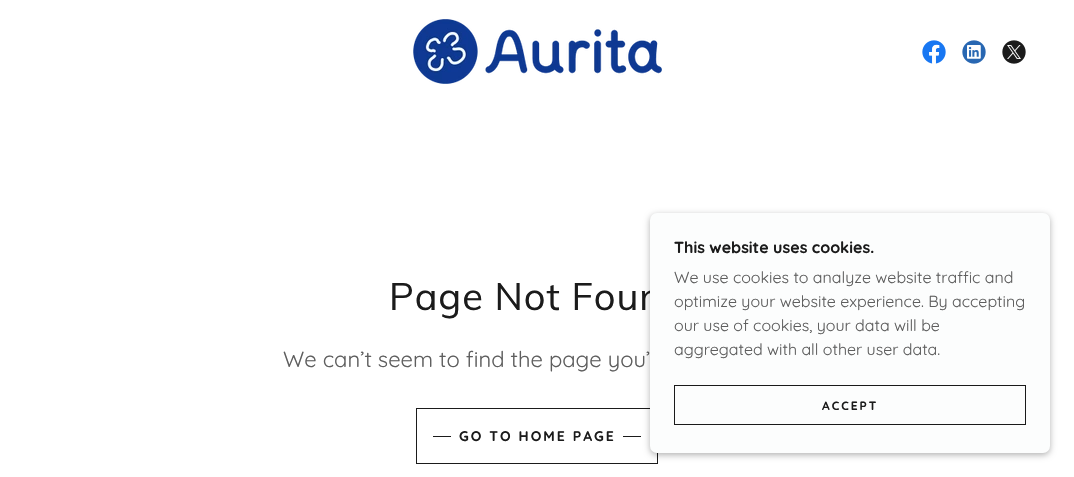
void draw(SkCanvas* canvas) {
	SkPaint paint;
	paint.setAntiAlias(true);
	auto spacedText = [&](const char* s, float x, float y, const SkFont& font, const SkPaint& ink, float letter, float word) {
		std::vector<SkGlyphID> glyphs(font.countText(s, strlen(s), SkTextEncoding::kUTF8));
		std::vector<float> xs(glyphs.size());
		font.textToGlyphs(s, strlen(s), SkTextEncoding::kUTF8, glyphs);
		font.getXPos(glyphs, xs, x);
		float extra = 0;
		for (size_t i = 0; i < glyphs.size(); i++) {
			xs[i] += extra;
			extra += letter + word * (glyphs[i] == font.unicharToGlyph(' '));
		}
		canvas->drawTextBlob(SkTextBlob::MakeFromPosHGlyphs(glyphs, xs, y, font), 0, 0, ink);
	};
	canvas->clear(0xffffffff);
	canvas->drawImageRect(SkImages::DeferredFromEncodedData(SkData::MakeFromFileName("img1.png")), SkRect::MakeXYWH(413, 19, 249, 65), SkSamplingOptions());
	canvas->drawImageRect(SkImages::DeferredFromEncodedData(SkData::MakeFromFileName("img2.png")), SkRect::MakeXYWH(922, 40, 24, 24), SkSamplingOptions());
	canvas->drawImageRect(SkImages::DeferredFromEncodedData(SkData::MakeFromFileName("img3.png")), SkRect::MakeXYWH(962, 40, 24, 24), SkSamplingOptions());
	canvas->drawImageRect(SkImages::DeferredFromEncodedData(SkData::MakeFromFileName("img4.png")), SkRect::MakeXYWH(1002, 40, 24, 24), SkSamplingOptions());
	SkFont f1(fontMgr->matchFamilyStyle("Muli", SkFontStyle::Normal()), 38);
	f1.setSubpixel(true);
	paint.setColor(0xff1b1b1b);
	spacedText("Page Not Foun", 389, 310, f1, paint, 0.9, 0);
	SkFont f2(fontMgr->matchFamilyStyle("Quicksand", SkFontStyle::Normal()), 22);
	f2.setSubpixel(true);
	paint.setColor(0xff5e5e5e);
	canvas->drawString("We can’t seem to find the page you’", 283, 367, f2, paint);
	paint.setStroke(true);
	paint.setStrokeWidth(1);
	paint.setColor(0xff1b1b1b);
	canvas->drawRect(SkRect::MakeXYWH(416.5, 408.5, 241, 55), paint);
	paint.setStroke(false);
	canvas->drawRect(SkRect::MakeXYWH(433, 436, 18, 1), paint);
	SkFont f3(fontMgr->matchFamilyStyle("Quicksand", SkFontStyle::Bold()), 14);
	f3.setSubpixel(true);
	spacedText("GO TO HOME PAGE", 459, 441, f3, paint, 2, 0);
	canvas->drawRect(SkRect::MakeXYWH(623, 436, 18, 1), paint);
	paint.setColor(0x4d000000);
	paint.setMaskFilter(SkMaskFilter::MakeBlur(kNormal_SkBlurStyle, 3));
	canvas->drawRoundRect(SkRect::MakeXYWH(650, 215, 400, 240), 7, 7, paint);
	paint.setMaskFilter(nullptr);
	paint.setColor(0xfffcfdfd);
	canvas->drawRoundRect(SkRect::MakeXYWH(650, 213, 400, 240), 7, 7, paint);
	SkFont f4(fontMgr->matchFamilyStyle("Quicksand", SkFontStyle::Bold()), 16);
	f4.setSubpixel(true);
	paint.setColor(0xff1b1b1b);
	canvas->drawString("This website uses cookies.", 674, 253, f4, paint);
	SkFont f5(fontMgr->matchFamilyStyle("Quicksand", SkFontStyle::Normal()), 16);
	f5.setSubpixel(true);
	paint.setColor(0xff5e5e5e);
	canvas->drawString("We use cookies to analyze website traffic and", 674, 283, f5, paint);
	canvas->drawString("optimize your website experience. By accepting", 674, 307, f5, paint);
	canvas->drawString("our use of cookies, your data will be", 674, 331, f5, paint);
	canvas->drawString("aggregated with all other user data.", 674, 355, f5, paint);
	paint.setStroke(true);
	paint.setColor(0xff1a1a1a);
	canvas->drawRect(SkRect::MakeXYWH(674.5, 385.5, 351, 39), paint);
	SkFont f6(fontMgr->matchFamilyStyle("Quicksand", SkFontStyle::Bold()), 12);
	f6.setSubpixel(true);
	paint.setStroke(false);
	paint.setColor(0xff1b1b1b);
	spacedText("ACCEPT", 822, 410, f6, paint, 2, 0);
}
